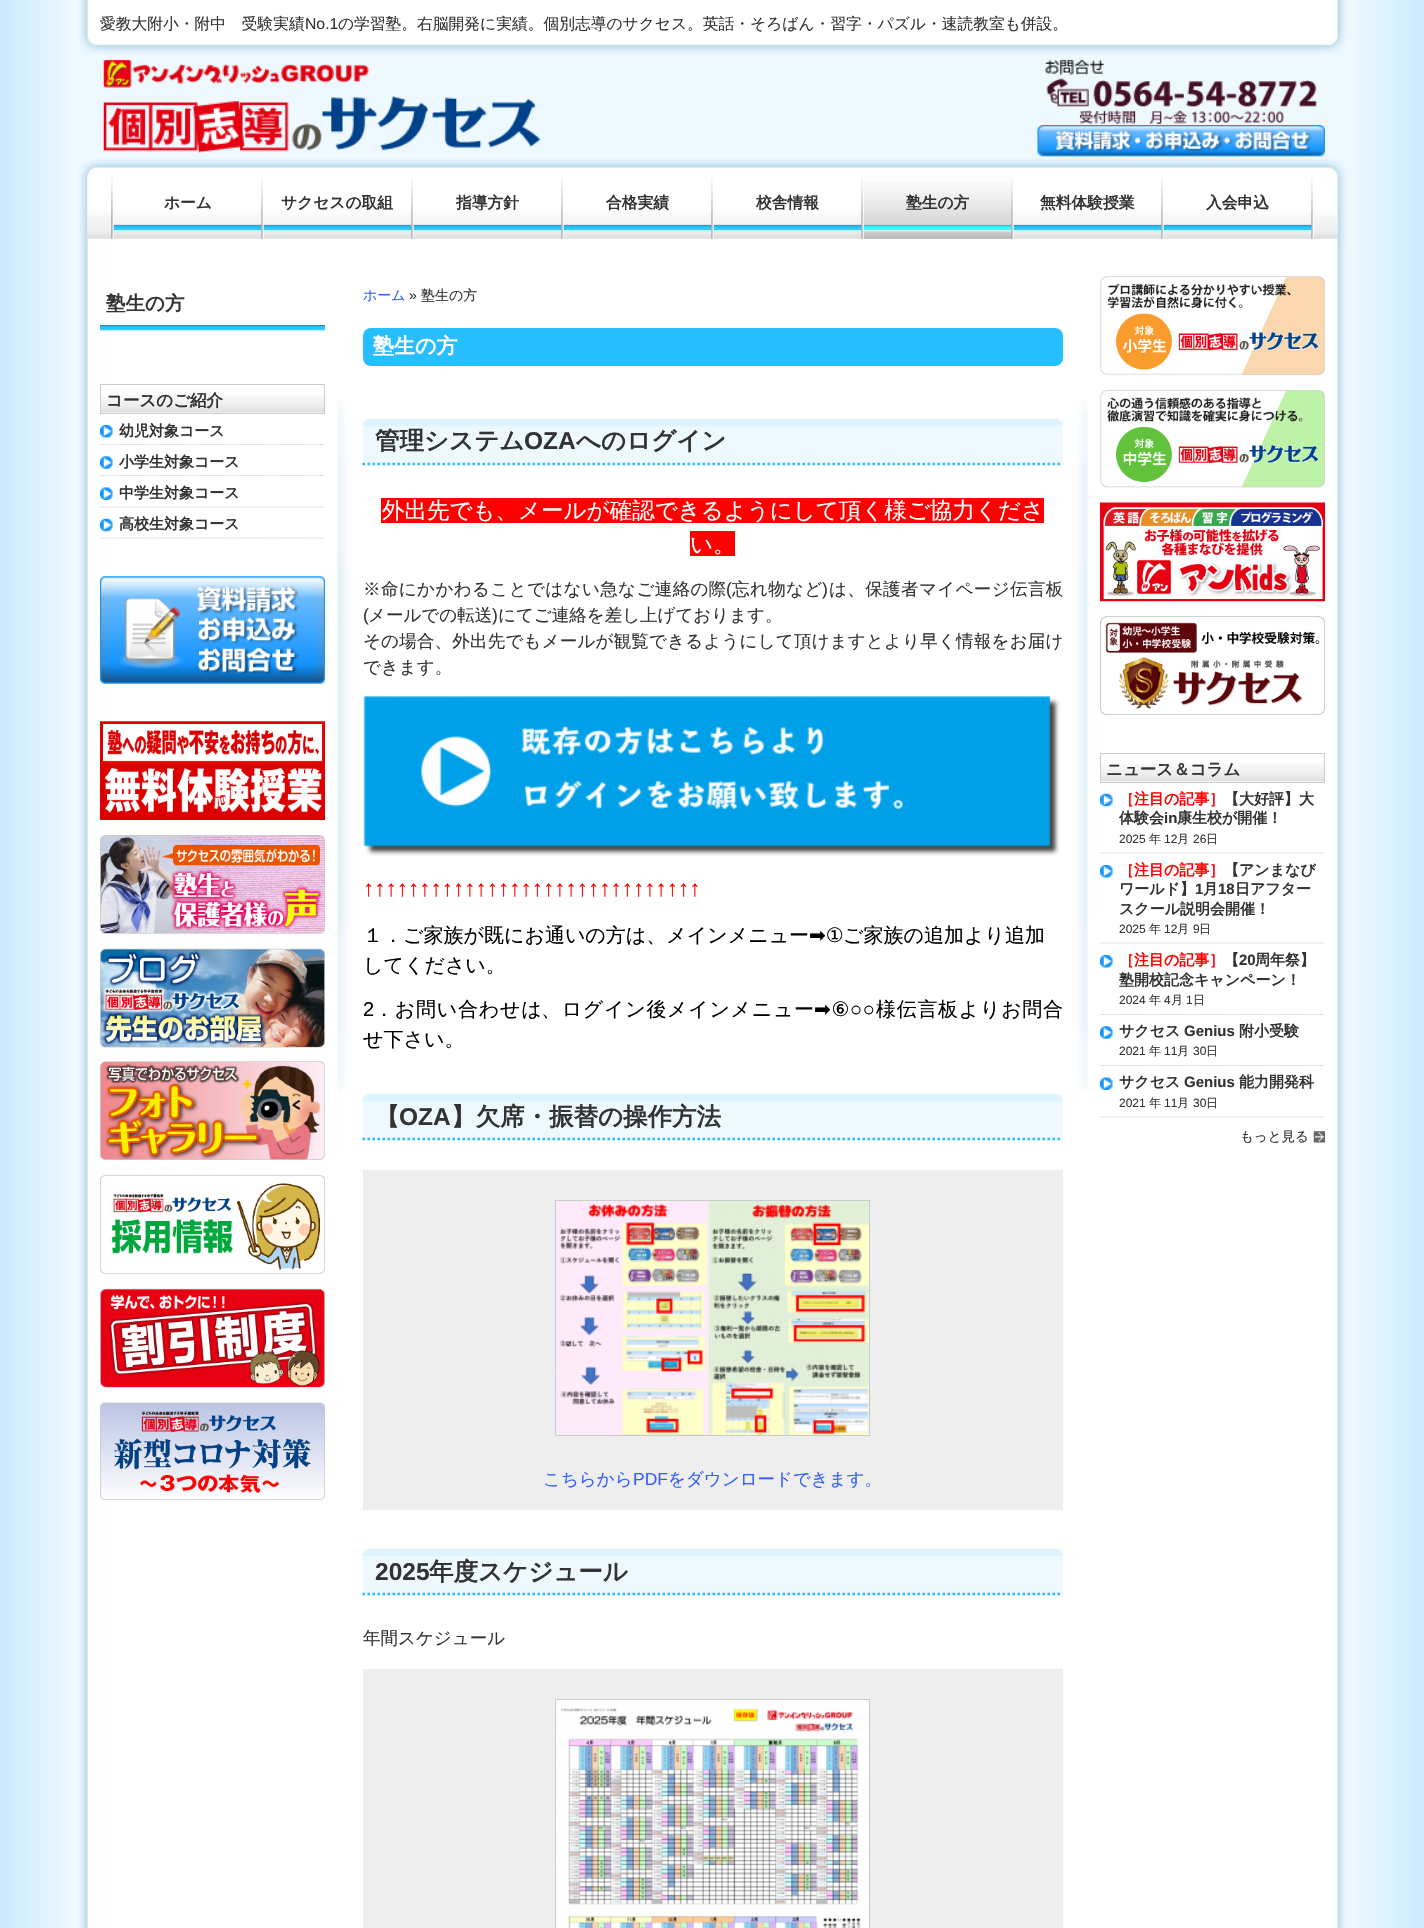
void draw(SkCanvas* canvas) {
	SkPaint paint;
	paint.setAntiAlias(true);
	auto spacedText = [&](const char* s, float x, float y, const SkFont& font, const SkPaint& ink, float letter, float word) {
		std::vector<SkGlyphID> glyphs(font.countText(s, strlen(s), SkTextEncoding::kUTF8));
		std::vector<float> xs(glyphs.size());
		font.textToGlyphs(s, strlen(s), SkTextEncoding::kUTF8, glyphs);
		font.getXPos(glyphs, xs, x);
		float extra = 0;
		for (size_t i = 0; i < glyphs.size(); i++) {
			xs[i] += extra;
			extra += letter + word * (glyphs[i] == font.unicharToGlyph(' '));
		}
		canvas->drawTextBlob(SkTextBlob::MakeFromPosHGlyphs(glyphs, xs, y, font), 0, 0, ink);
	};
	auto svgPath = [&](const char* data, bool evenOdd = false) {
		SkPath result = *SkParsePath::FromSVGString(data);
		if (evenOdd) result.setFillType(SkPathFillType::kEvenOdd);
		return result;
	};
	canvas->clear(0xffffffff);
	canvas->drawImageRect(SkImages::DeferredFromEncodedData(SkData::MakeFromFileName("img1.png")), SkRect::MakeXYWH(0, 0, 1424, 1928), SkSamplingOptions());
	canvas->drawImageRect(SkImages::DeferredFromEncodedData(SkData::MakeFromFileName("img2.png")), SkRect::MakeXYWH(79, 245, 1267, 1683), SkSamplingOptions());
	canvas->drawImageRect(SkImages::DeferredFromEncodedData(SkData::MakeFromFileName("img3.png")), SkRect::MakeXYWH(79, 0, 1267, 54), SkSamplingOptions());
	SkFont f1(fontMgr->matchFamilyStyle("WenQuanYi Zen Hei", SkFontStyle(500, SkFontStyle::kNormal_Width, SkFontStyle::kUpright_Slant)), 15.75);
	f1.setSubpixel(true);
	paint.setColor(0xff333333);
	canvas->drawString("愛教大附小・附中　受験実績", 100, 29, f1, paint);
	SkFont f2(fontMgr->matchFamilyStyle("Liberation Sans", SkFontStyle::Normal()), 15.75);
	f2.setSubpixel(true);
	canvas->drawString("No.1", 305, 29, f2, paint);
	canvas->drawString("の学習塾。右脳開発に実績。個別志導のサクセス。英話・そろばん・習字・パズル・速読教室も併設。", 338, 29, f1, paint);
	canvas->drawImageRect(SkImages::DeferredFromEncodedData(SkData::MakeFromFileName("img4.png")), SkRect::MakeXYWH(103, 59, 438, 94), SkSamplingOptions());
	canvas->drawImageRect(SkImages::DeferredFromEncodedData(SkData::MakeFromFileName("img5.png")), SkRect::MakeXYWH(1044, 59, 273, 65), SkSamplingOptions());
	canvas->drawImageRect(SkImages::DeferredFromEncodedData(SkData::MakeFromFileName("img6.png")), SkRect::MakeXYWH(1037, 125, 288, 32), SkSamplingOptions());
	canvas->drawImageRect(SkImages::DeferredFromEncodedData(SkData::MakeFromFileName("img7.png")), SkRect::MakeXYWH(79, 159, 1267, 86), SkSamplingOptions());
	canvas->drawImageRect(SkImages::DeferredFromEncodedData(SkData::MakeFromFileName("img8.png")), SkRect::MakeXYWH(87, 176, 1251, 63), SkSamplingOptions());
	canvas->drawImageRect(SkImages::DeferredFromEncodedData(SkData::MakeFromFileName("img9.png")), SkRect::MakeXYWH(261, 177, 3, 62), SkSamplingOptions());
	canvas->drawImageRect(SkImages::DeferredFromEncodedData(SkData::MakeFromFileName("img10.png")), SkRect::MakeXYWH(113, 184, 149, 55), SkSamplingOptions());
	SkFont f3(fontMgr->matchFamilyStyle("WenQuanYi Zen Hei", SkFontStyle::Bold()), 15.75);
	f3.setSubpixel(true);
	canvas->drawString("ホーム", 164, 208, f3, paint);
	canvas->drawImageRect(SkImages::DeferredFromEncodedData(SkData::MakeFromFileName("img9.png")), SkRect::MakeXYWH(411, 177, 3, 62), SkSamplingOptions());
	canvas->drawImageRect(SkImages::DeferredFromEncodedData(SkData::MakeFromFileName("img11.png")), SkRect::MakeXYWH(263, 184, 149, 55), SkSamplingOptions());
	canvas->drawString("サクセスの取組", 281, 208, f3, paint);
	canvas->drawImageRect(SkImages::DeferredFromEncodedData(SkData::MakeFromFileName("img9.png")), SkRect::MakeXYWH(561, 177, 3, 62), SkSamplingOptions());
	canvas->drawImageRect(SkImages::DeferredFromEncodedData(SkData::MakeFromFileName("img12.png")), SkRect::MakeXYWH(413, 184, 149, 55), SkSamplingOptions());
	canvas->drawString("指導方針", 456, 208, f3, paint);
	canvas->drawImageRect(SkImages::DeferredFromEncodedData(SkData::MakeFromFileName("img9.png")), SkRect::MakeXYWH(711, 177, 3, 62), SkSamplingOptions());
	canvas->drawImageRect(SkImages::DeferredFromEncodedData(SkData::MakeFromFileName("img13.png")), SkRect::MakeXYWH(563, 184, 149, 55), SkSamplingOptions());
	canvas->drawString("合格実績", 606, 208, f3, paint);
	canvas->drawImageRect(SkImages::DeferredFromEncodedData(SkData::MakeFromFileName("img9.png")), SkRect::MakeXYWH(861, 177, 3, 62), SkSamplingOptions());
	canvas->drawImageRect(SkImages::DeferredFromEncodedData(SkData::MakeFromFileName("img14.png")), SkRect::MakeXYWH(713, 184, 149, 55), SkSamplingOptions());
	canvas->drawString("校舎情報", 756, 208, f3, paint);
	canvas->drawImageRect(SkImages::DeferredFromEncodedData(SkData::MakeFromFileName("img9.png")), SkRect::MakeXYWH(1011, 177, 3, 62), SkSamplingOptions());
	canvas->drawImageRect(SkImages::DeferredFromEncodedData(SkData::MakeFromFileName("img15.png")), SkRect::MakeXYWH(863, 176, 149, 63), SkSamplingOptions());
	canvas->drawString("塾生の方", 906, 208, f3, paint);
	canvas->drawImageRect(SkImages::DeferredFromEncodedData(SkData::MakeFromFileName("img9.png")), SkRect::MakeXYWH(1161, 177, 3, 62), SkSamplingOptions());
	canvas->drawImageRect(SkImages::DeferredFromEncodedData(SkData::MakeFromFileName("img16.png")), SkRect::MakeXYWH(1013, 184, 149, 55), SkSamplingOptions());
	canvas->drawString("無料体験授業", 1040, 208, f3, paint);
	canvas->drawImageRect(SkImages::DeferredFromEncodedData(SkData::MakeFromFileName("img9.png")), SkRect::MakeXYWH(1311, 177, 3, 62), SkSamplingOptions());
	canvas->drawImageRect(SkImages::DeferredFromEncodedData(SkData::MakeFromFileName("img17.png")), SkRect::MakeXYWH(1163, 184, 149, 55), SkSamplingOptions());
	canvas->drawString("入会申込", 1206, 208, f3, paint);
	canvas->drawImageRect(SkImages::DeferredFromEncodedData(SkData::MakeFromFileName("img18.png")), SkRect::MakeXYWH(100, 325, 225, 7), SkSamplingOptions());
	SkFont f4(fontMgr->matchFamilyStyle("WenQuanYi Zen Hei", SkFontStyle::Bold()), 19.5);
	f4.setSubpixel(true);
	canvas->drawString("塾生の方", 106, 310, f4, paint);
	canvas->drawImageRect(SkImages::DeferredFromEncodedData(SkData::MakeFromFileName("img19.png")), SkRect::MakeXYWH(101, 395, 223, 18), SkSamplingOptions());
	paint.setStroke(true);
	paint.setStrokeWidth(1);
	paint.setColor(0xffcccccc);
	canvas->drawRect(SkRect::MakeXYWH(100.5, 384.5, 224, 29), paint);
	SkFont f5(fontMgr->matchFamilyStyle("WenQuanYi Zen Hei", SkFontStyle::Bold()), 16.5);
	f5.setSubpixel(true);
	paint.setStroke(false);
	paint.setColor(0xff333333);
	canvas->drawString("コースのご紹介", 106, 406, f5, paint);
	canvas->drawImageRect(SkImages::DeferredFromEncodedData(SkData::MakeFromFileName("img20.png")), SkRect::MakeXYWH(100, 425, 13, 13), SkSamplingOptions());
	paint.setStroke(true);
	paint.setStrokeWidth(1.2);
	paint.setColor(0xffcccccc);
	paint.setPathEffect(SkDashPathEffect::Make({{1.25f, 1.25f}}, 0));
	canvas->drawPath(svgPath("M100 444.5H325"), paint);
	paint.setPathEffect(nullptr);
	SkFont f6(fontMgr->matchFamilyStyle("WenQuanYi Zen Hei", SkFontStyle::Bold()), 15);
	f6.setSubpixel(true);
	paint.setStroke(false);
	paint.setColor(0xff333333);
	canvas->drawString("幼児対象コース", 119, 436, f6, paint);
	canvas->drawImageRect(SkImages::DeferredFromEncodedData(SkData::MakeFromFileName("img21.png")), SkRect::MakeXYWH(100, 456, 13, 13), SkSamplingOptions());
	paint.setStroke(true);
	paint.setColor(0xffcccccc);
	paint.setPathEffect(SkDashPathEffect::Make({{1.25f, 1.25f}}, 0));
	canvas->drawPath(svgPath("M100 475.5H325"), paint);
	paint.setPathEffect(nullptr);
	paint.setStroke(false);
	paint.setColor(0xff333333);
	canvas->drawString("小学生対象コース", 119, 467, f6, paint);
	canvas->drawImageRect(SkImages::DeferredFromEncodedData(SkData::MakeFromFileName("img22.png")), SkRect::MakeXYWH(100, 487, 13, 13), SkSamplingOptions());
	paint.setStroke(true);
	paint.setColor(0xffcccccc);
	paint.setPathEffect(SkDashPathEffect::Make({{1.25f, 1.25f}}, 0));
	canvas->drawPath(svgPath("M100 507H325"), paint);
	paint.setPathEffect(nullptr);
	paint.setStroke(false);
	paint.setColor(0xff333333);
	canvas->drawString("中学生対象コース", 119, 498, f6, paint);
	canvas->drawImageRect(SkImages::DeferredFromEncodedData(SkData::MakeFromFileName("img23.png")), SkRect::MakeXYWH(100, 518, 13, 14), SkSamplingOptions());
	paint.setStroke(true);
	paint.setColor(0xffcccccc);
	paint.setPathEffect(SkDashPathEffect::Make({{1.25f, 1.25f}}, 0));
	canvas->drawPath(svgPath("M100 538H325"), paint);
	paint.setPathEffect(nullptr);
	paint.setStroke(false);
	paint.setColor(0xff333333);
	canvas->drawString("高校生対象コース", 119, 529, f6, paint);
	canvas->drawImageRect(SkImages::DeferredFromEncodedData(SkData::MakeFromFileName("img24.png")), SkRect::MakeXYWH(100, 576, 225, 108), SkSamplingOptions());
	canvas->drawImageRect(SkImages::DeferredFromEncodedData(SkData::MakeFromFileName("img25.png")), SkRect::MakeXYWH(100, 721, 225, 99), SkSamplingOptions());
	canvas->drawImageRect(SkImages::DeferredFromEncodedData(SkData::MakeFromFileName("img26.png")), SkRect::MakeXYWH(100, 835, 225, 99), SkSamplingOptions());
	canvas->drawImageRect(SkImages::DeferredFromEncodedData(SkData::MakeFromFileName("img27.png")), SkRect::MakeXYWH(100, 948, 225, 100), SkSamplingOptions());
	canvas->drawImageRect(SkImages::DeferredFromEncodedData(SkData::MakeFromFileName("img28.png")), SkRect::MakeXYWH(100, 1061, 225, 99), SkSamplingOptions());
	canvas->drawImageRect(SkImages::DeferredFromEncodedData(SkData::MakeFromFileName("img29.png")), SkRect::MakeXYWH(100, 1175, 225, 99), SkSamplingOptions());
	canvas->drawImageRect(SkImages::DeferredFromEncodedData(SkData::MakeFromFileName("img30.png")), SkRect::MakeXYWH(100, 1288, 225, 100), SkSamplingOptions());
	canvas->drawImageRect(SkImages::DeferredFromEncodedData(SkData::MakeFromFileName("img31.png")), SkRect::MakeXYWH(100, 1402, 225, 98), SkSamplingOptions());
	canvas->drawImageRect(SkImages::DeferredFromEncodedData(SkData::MakeFromFileName("img32.png")), SkRect::MakeXYWH(337, 399, 751, 694), SkSamplingOptions());
	SkFont f7(fontMgr->matchFamilyStyle("WenQuanYi Zen Hei", SkFontStyle(500, SkFontStyle::kNormal_Width, SkFontStyle::kUpright_Slant)), 14);
	f7.setSubpixel(true);
	paint.setColor(0xff355fff);
	canvas->drawString("ホーム", 363, 300, f7, paint);
	SkFont f8(fontMgr->matchFamilyStyle("Liberation Sans", SkFontStyle::Normal()), 14);
	f8.setSubpixel(true);
	paint.setColor(0xff333333);
	canvas->drawString("»", 409, 300, f8, paint);
	canvas->drawString("塾生の方", 421, 300, f7, paint);
	paint.setColor(0xff26beff);
	canvas->drawRoundRect(SkRect::MakeXYWH(363, 328, 700, 38), 8, 8, paint);
	SkFont f9(fontMgr->matchFamilyStyle("WenQuanYi Zen Hei", SkFontStyle::Bold()), 21);
	f9.setSubpixel(true);
	paint.setColor(0xffffffff);
	canvas->drawString("塾生の方", 373, 353, f9, paint);
	paint.setColor(0xffedf8ff);
	canvas->drawRect(SkRect::MakeXYWH(363, 419, 700, 46), paint);
	canvas->drawImageRect(SkImages::DeferredFromEncodedData(SkData::MakeFromFileName("img33.png")), SkRect::MakeXYWH(362, 418, 701, 9), SkSamplingOptions());
	paint.setStroke(true);
	paint.setStrokeWidth(2.5);
	paint.setColor(0xff26beff);
	paint.setPathEffect(SkDashPathEffect::Make({{2.5f, 2.5f}}, 0));
	canvas->drawPath(svgPath("M362.5 464H1062.5"), paint);
	paint.setPathEffect(nullptr);
	SkFont f10(fontMgr->matchFamilyStyle("WenQuanYi Zen Hei", SkFontStyle::Bold()), 24.5);
	f10.setSubpixel(true);
	paint.setStroke(false);
	paint.setColor(0xff333333);
	canvas->drawString("管理システム", 375, 449, f10, paint);
	SkFont f11(fontMgr->matchFamilyStyle("Liberation Sans", SkFontStyle::Bold()), 24.5);
	f11.setSubpixel(true);
	canvas->drawString("OZA", 524, 449, f11, paint);
	canvas->drawString("へのログイン", 576, 449, f10, paint);
	paint.setColor(0xffff0000);
	canvas->drawRect(SkRect::MakeXYWH(381, 498, 663, 25), paint);
	SkFont f12(fontMgr->matchFamilyStyle("WenQuanYi Zen Hei", SkFontStyle(500, SkFontStyle::kNormal_Width, SkFontStyle::kUpright_Slant)), 22.5);
	f12.setSubpixel(true);
	paint.setColor(0xffffffff);
	canvas->drawString("外出先でも、メールが確認できるようにして頂く様ご協力くださ", 382, 518, f12, paint);
	paint.setColor(0xffff0000);
	canvas->drawRect(SkRect::MakeXYWH(690, 531, 45, 25), paint);
	paint.setColor(0xffffffff);
	canvas->drawString("い。", 690, 552, f12, paint);
	SkFont f13(fontMgr->matchFamilyStyle("WenQuanYi Zen Hei", SkFontStyle(500, SkFontStyle::kNormal_Width, SkFontStyle::kUpright_Slant)), 17.5);
	f13.setSubpixel(true);
	paint.setColor(0xff333333);
	spacedText("※命にかかわることではない急なご連絡の際", 363, 595, f13, paint, 0.4, 0);
	SkFont f14(fontMgr->matchFamilyStyle("Liberation Sans", SkFontStyle::Normal()), 17.5);
	f14.setSubpixel(true);
	spacedText("(", 726, 595, f14, paint, 0.4, 0);
	spacedText("忘れ物など", 732, 595, f13, paint, 0.4, 0);
	spacedText(")", 822, 595, f14, paint, 0.4, 0);
	spacedText("は、保護者マイページ伝言板", 829, 595, f13, paint, 0.4, 0);
	canvas->drawString("(", 363, 621, f14, paint);
	canvas->drawString("メールでの転送", 368, 621, f13, paint);
	canvas->drawString(")", 492, 621, f14, paint);
	canvas->drawString("にてご連絡を差し上げております。", 498, 621, f13, paint);
	spacedText("その場合、外出先でもメールが観覧できるようにして頂けますとより早く情報をお届け", 363, 647, f13, paint, 0.2, 0);
	canvas->drawString("できます。", 363, 673, f13, paint);
	canvas->drawImageRect(SkImages::DeferredFromEncodedData(SkData::MakeFromFileName("img34.png")), SkRect::MakeXYWH(363, 696, 697, 160), SkSamplingOptions());
	SkFont f15(fontMgr->matchFamilyStyle("Liberation Sans", SkFontStyle::Bold()), 22.5);
	f15.setSubpixel(true);
	paint.setColor(0xffff0000);
	canvas->drawString("↑↑↑↑↑↑↑↑↑↑↑↑↑↑↑↑↑↑↑↑↑↑↑↑↑↑↑↑↑↑", 363, 896, f15, paint);
	SkFont f16(fontMgr->matchFamilyStyle("WenQuanYi Zen Hei", SkFontStyle(500, SkFontStyle::kNormal_Width, SkFontStyle::kUpright_Slant)), 20);
	f16.setSubpixel(true);
	paint.setColor(0xff000000);
	canvas->drawString("１．ご家族が既にお通いの方は、メインメニュー", 363, 942, f16, paint);
	SkFont f17(fontMgr->matchFamilyStyle("DejaVu Sans", SkFontStyle::Normal()), 20);
	f17.setSubpixel(true);
	canvas->drawString("➡①", 809, 942, f17, paint);
	canvas->drawString("ご家族の追加より追加", 843, 942, f16, paint);
	canvas->drawString("してください。", 363, 972, f16, paint);
	SkFont f18(fontMgr->matchFamilyStyle("Liberation Sans", SkFontStyle::Normal()), 20);
	f18.setSubpixel(true);
	spacedText("2", 363, 1016, f18, paint, 0.75, 0);
	spacedText("．お問い合わせは", 374, 1016, f16, paint, 0.75, 0);
	spacedText("、ログイン後メインメニュー", 541, 1016, f16, paint, 0.7, 0);
	spacedText("➡⑥", 814, 1016, f17, paint, 0.7, 0);
	spacedText("○○", 850, 1016, f18, paint, 0.7, 0);
	spacedText("様伝言板よりお問合", 876, 1016, f16, paint, 0.7, 0);
	canvas->drawString("せ下さい。", 363, 1046, f16, paint);
	paint.setColor(0xffedf8ff);
	canvas->drawRect(SkRect::MakeXYWH(363, 1094, 700, 46), paint);
	canvas->drawImageRect(SkImages::DeferredFromEncodedData(SkData::MakeFromFileName("img33.png")), SkRect::MakeXYWH(362, 1093, 701, 9), SkSamplingOptions());
	paint.setStroke(true);
	paint.setColor(0xff26beff);
	paint.setPathEffect(SkDashPathEffect::Make({{2.5f, 2.5f}}, 0));
	canvas->drawPath(svgPath("M362.5 1139H1062.5"), paint);
	paint.setPathEffect(nullptr);
	paint.setStroke(false);
	paint.setColor(0xff333333);
	canvas->drawString("【", 375, 1125, f10, paint);
	canvas->drawString("OZA", 399, 1125, f11, paint);
	canvas->drawString("】欠席・振替の操作方法", 451, 1125, f10, paint);
	paint.setColor(0xffeeeeee);
	canvas->drawRect(SkRect::MakeXYWH(363, 1170, 700, 340), paint);
	paint.setStroke(true);
	paint.setStrokeWidth(1);
	paint.setColor(0xffcccccc);
	canvas->drawRect(SkRect::MakeXYWH(555.5, 1200.5, 314, 235), paint);
	canvas->drawImageRect(SkImages::DeferredFromEncodedData(SkData::MakeFromFileName("img35.png")), SkRect::MakeXYWH(556, 1201, 313, 234), SkSamplingOptions());
	paint.setStroke(false);
	paint.setColor(0xff355fff);
	canvas->drawString("こちらから", 543, 1485, f13, paint);
	canvas->drawString("PDF", 633, 1485, f14, paint);
	canvas->drawString("をダウンロードできます。", 668, 1485, f13, paint);
	paint.setColor(0xffedf8ff);
	canvas->drawRect(SkRect::MakeXYWH(363, 1549, 700, 46), paint);
	canvas->drawImageRect(SkImages::DeferredFromEncodedData(SkData::MakeFromFileName("img33.png")), SkRect::MakeXYWH(362, 1548, 701, 9), SkSamplingOptions());
	paint.setStroke(true);
	paint.setStrokeWidth(2.5);
	paint.setColor(0xff26beff);
	paint.setPathEffect(SkDashPathEffect::Make({{2.5f, 2.5f}}, 0));
	canvas->drawPath(svgPath("M362.5 1594H1062.5"), paint);
	paint.setPathEffect(nullptr);
	paint.setStroke(false);
	paint.setColor(0xff333333);
	canvas->drawString("2025", 375, 1580, f11, paint);
	canvas->drawString("年度スケジュール", 429, 1580, f10, paint);
	canvas->drawString("年間スケジュール", 363, 1644, f13, paint);
	paint.setColor(0xffeeeeee);
	canvas->drawRect(SkRect::MakeXYWH(363, 1669, 700, 259), paint);
	paint.setStroke(true);
	paint.setStrokeWidth(1);
	paint.setColor(0xffcccccc);
	canvas->drawRect(SkRect::MakeXYWH(555.5, 1699.5, 314, 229), paint);
	canvas->drawImageRect(SkImages::DeferredFromEncodedData(SkData::MakeFromFileName("img36.png")), SkRect::MakeXYWH(556, 1700, 313, 228), SkSamplingOptions());
	canvas->drawImageRect(SkImages::DeferredFromEncodedData(SkData::MakeFromFileName("img37.png")), SkRect::MakeXYWH(1100, 276, 225, 99), SkSamplingOptions());
	canvas->drawImageRect(SkImages::DeferredFromEncodedData(SkData::MakeFromFileName("img38.png")), SkRect::MakeXYWH(1100, 390, 225, 98), SkSamplingOptions());
	canvas->drawImageRect(SkImages::DeferredFromEncodedData(SkData::MakeFromFileName("img39.png")), SkRect::MakeXYWH(1100, 502, 225, 100), SkSamplingOptions());
	canvas->drawImageRect(SkImages::DeferredFromEncodedData(SkData::MakeFromFileName("img40.png")), SkRect::MakeXYWH(1100, 616, 225, 99), SkSamplingOptions());
	canvas->drawImageRect(SkImages::DeferredFromEncodedData(SkData::MakeFromFileName("img41.png")), SkRect::MakeXYWH(1101, 763, 223, 19), SkSamplingOptions());
	canvas->drawRect(SkRect::MakeXYWH(1100.5, 753.5, 224, 29), paint);
	paint.setStroke(false);
	paint.setColor(0xff333333);
	canvas->drawString("ニュース＆コラム", 1106, 775, f5, paint);
	canvas->drawImageRect(SkImages::DeferredFromEncodedData(SkData::MakeFromFileName("img42.png")), SkRect::MakeXYWH(1100, 793, 13, 14), SkSamplingOptions());
	paint.setStroke(true);
	paint.setStrokeWidth(1.2);
	paint.setColor(0xffcccccc);
	paint.setPathEffect(SkDashPathEffect::Make({{1.25f, 1.25f}}, 0));
	canvas->drawPath(svgPath("M1100 853H1325"), paint);
	paint.setPathEffect(nullptr);
	paint.setStroke(false);
	paint.setColor(0xffff0000);
	canvas->drawString("［注目の記事］", 1119, 804, f6, paint);
	paint.setColor(0xff333333);
	canvas->drawString("【大好評】大", 1224, 804, f6, paint);
	canvas->drawString("体験会", 1119, 823, f6, paint);
	SkFont f19(fontMgr->matchFamilyStyle("Liberation Sans", SkFontStyle::Bold()), 15);
	f19.setSubpixel(true);
	canvas->drawString("in", 1164, 823, f19, paint);
	canvas->drawString("康生校が開催！", 1177, 823, f6, paint);
	SkFont f20(fontMgr->matchFamilyStyle("Liberation Sans", SkFontStyle::Normal()), 12);
	f20.setSubpixel(true);
	canvas->drawString("2025", 1119, 843, f20, paint);
	SkFont f21(fontMgr->matchFamilyStyle("WenQuanYi Zen Hei", SkFontStyle(500, SkFontStyle::kNormal_Width, SkFontStyle::kUpright_Slant)), 12);
	f21.setSubpixel(true);
	canvas->drawString("年", 1149, 843, f21, paint);
	canvas->drawString("12", 1164, 843, f20, paint);
	canvas->drawString("月", 1177, 843, f21, paint);
	canvas->drawString("26", 1193, 843, f20, paint);
	canvas->drawString("日", 1206, 843, f21, paint);
	canvas->drawImageRect(SkImages::DeferredFromEncodedData(SkData::MakeFromFileName("img43.png")), SkRect::MakeXYWH(1100, 865, 13, 13), SkSamplingOptions());
	paint.setStroke(true);
	paint.setColor(0xffcccccc);
	paint.setPathEffect(SkDashPathEffect::Make({{1.25f, 1.25f}}, 0));
	canvas->drawPath(svgPath("M1100 943H1325"), paint);
	paint.setPathEffect(nullptr);
	paint.setStroke(false);
	paint.setColor(0xffff0000);
	canvas->drawString("［注目の記事］", 1119, 875, f6, paint);
	paint.setColor(0xff333333);
	canvas->drawString("【アンまなび", 1224, 875, f6, paint);
	canvas->drawString("ワールド】", 1119, 894, f6, paint);
	canvas->drawString("1", 1195, 894, f19, paint);
	canvas->drawString("月", 1203, 894, f6, paint);
	canvas->drawString("18", 1218, 894, f19, paint);
	canvas->drawString("日アフター", 1235, 894, f6, paint);
	canvas->drawString("スクール説明会開催！", 1119, 914, f6, paint);
	canvas->drawString("2025", 1119, 933, f20, paint);
	canvas->drawString("年", 1149, 933, f21, paint);
	canvas->drawString("12", 1164, 933, f20, paint);
	canvas->drawString("月", 1177, 933, f21, paint);
	canvas->drawString("9", 1193, 933, f20, paint);
	canvas->drawString("日", 1199, 933, f21, paint);
	canvas->drawImageRect(SkImages::DeferredFromEncodedData(SkData::MakeFromFileName("img43.png")), SkRect::MakeXYWH(1100, 955, 13, 13), SkSamplingOptions());
	paint.setStroke(true);
	paint.setColor(0xffcccccc);
	paint.setPathEffect(SkDashPathEffect::Make({{1.25f, 1.25f}}, 0));
	canvas->drawPath(svgPath("M1100 1014.5H1325"), paint);
	paint.setPathEffect(nullptr);
	paint.setStroke(false);
	paint.setColor(0xffff0000);
	canvas->drawString("［注目の記事］", 1119, 965, f6, paint);
	paint.setColor(0xff333333);
	canvas->drawString("【", 1224, 965, f6, paint);
	canvas->drawString("20", 1239, 965, f19, paint);
	canvas->drawString("周年祭】", 1255, 965, f6, paint);
	canvas->drawString("塾開校記念キャンペーン！", 1119, 985, f6, paint);
	canvas->drawString("2024", 1119, 1004, f20, paint);
	canvas->drawString("年", 1149, 1004, f21, paint);
	canvas->drawString("4", 1164, 1004, f20, paint);
	canvas->drawString("月", 1171, 1004, f21, paint);
	canvas->drawString("1", 1186, 1004, f20, paint);
	canvas->drawString("日", 1193, 1004, f21, paint);
	canvas->drawImageRect(SkImages::DeferredFromEncodedData(SkData::MakeFromFileName("img44.png")), SkRect::MakeXYWH(1100, 1026, 13, 13), SkSamplingOptions());
	paint.setStroke(true);
	paint.setColor(0xffcccccc);
	paint.setPathEffect(SkDashPathEffect::Make({{1.25f, 1.25f}}, 0));
	canvas->drawPath(svgPath("M1100 1065.5H1325"), paint);
	paint.setPathEffect(nullptr);
	paint.setStroke(false);
	paint.setColor(0xff333333);
	canvas->drawString("サクセス", 1119, 1036, f6, paint);
	canvas->drawString("Genius", 1184, 1036, f19, paint);
	canvas->drawString("附小受験", 1239, 1036, f6, paint);
	canvas->drawString("2021", 1119, 1055, f20, paint);
	canvas->drawString("年", 1149, 1055, f21, paint);
	canvas->drawString("11", 1164, 1055, f20, paint);
	canvas->drawString("月", 1177, 1055, f21, paint);
	canvas->drawString("30", 1193, 1055, f20, paint);
	canvas->drawString("日", 1206, 1055, f21, paint);
	canvas->drawImageRect(SkImages::DeferredFromEncodedData(SkData::MakeFromFileName("img45.png")), SkRect::MakeXYWH(1100, 1077, 13, 13), SkSamplingOptions());
	paint.setStroke(true);
	paint.setColor(0xffcccccc);
	paint.setPathEffect(SkDashPathEffect::Make({{1.25f, 1.25f}}, 0));
	canvas->drawPath(svgPath("M1100 1117H1325"), paint);
	paint.setPathEffect(nullptr);
	paint.setStroke(false);
	paint.setColor(0xff333333);
	canvas->drawString("サクセス", 1119, 1087, f6, paint);
	canvas->drawString("Genius", 1184, 1087, f19, paint);
	canvas->drawString("能力開発科", 1239, 1087, f6, paint);
	canvas->drawString("2021", 1119, 1107, f20, paint);
	canvas->drawString("年", 1149, 1107, f21, paint);
	canvas->drawString("11", 1164, 1107, f20, paint);
	canvas->drawString("月", 1177, 1107, f21, paint);
	canvas->drawString("30", 1193, 1107, f20, paint);
	canvas->drawString("日", 1206, 1107, f21, paint);
	canvas->drawImageRect(SkImages::DeferredFromEncodedData(SkData::MakeFromFileName("img46.png")), SkRect::MakeXYWH(1313, 1131, 12, 12), SkSamplingOptions());
	SkFont f22(fontMgr->matchFamilyStyle("WenQuanYi Zen Hei", SkFontStyle(500, SkFontStyle::kNormal_Width, SkFontStyle::kUpright_Slant)), 13.5);
	f22.setSubpixel(true);
	canvas->drawString("もっと見る", 1240, 1141, f22, paint);
}
